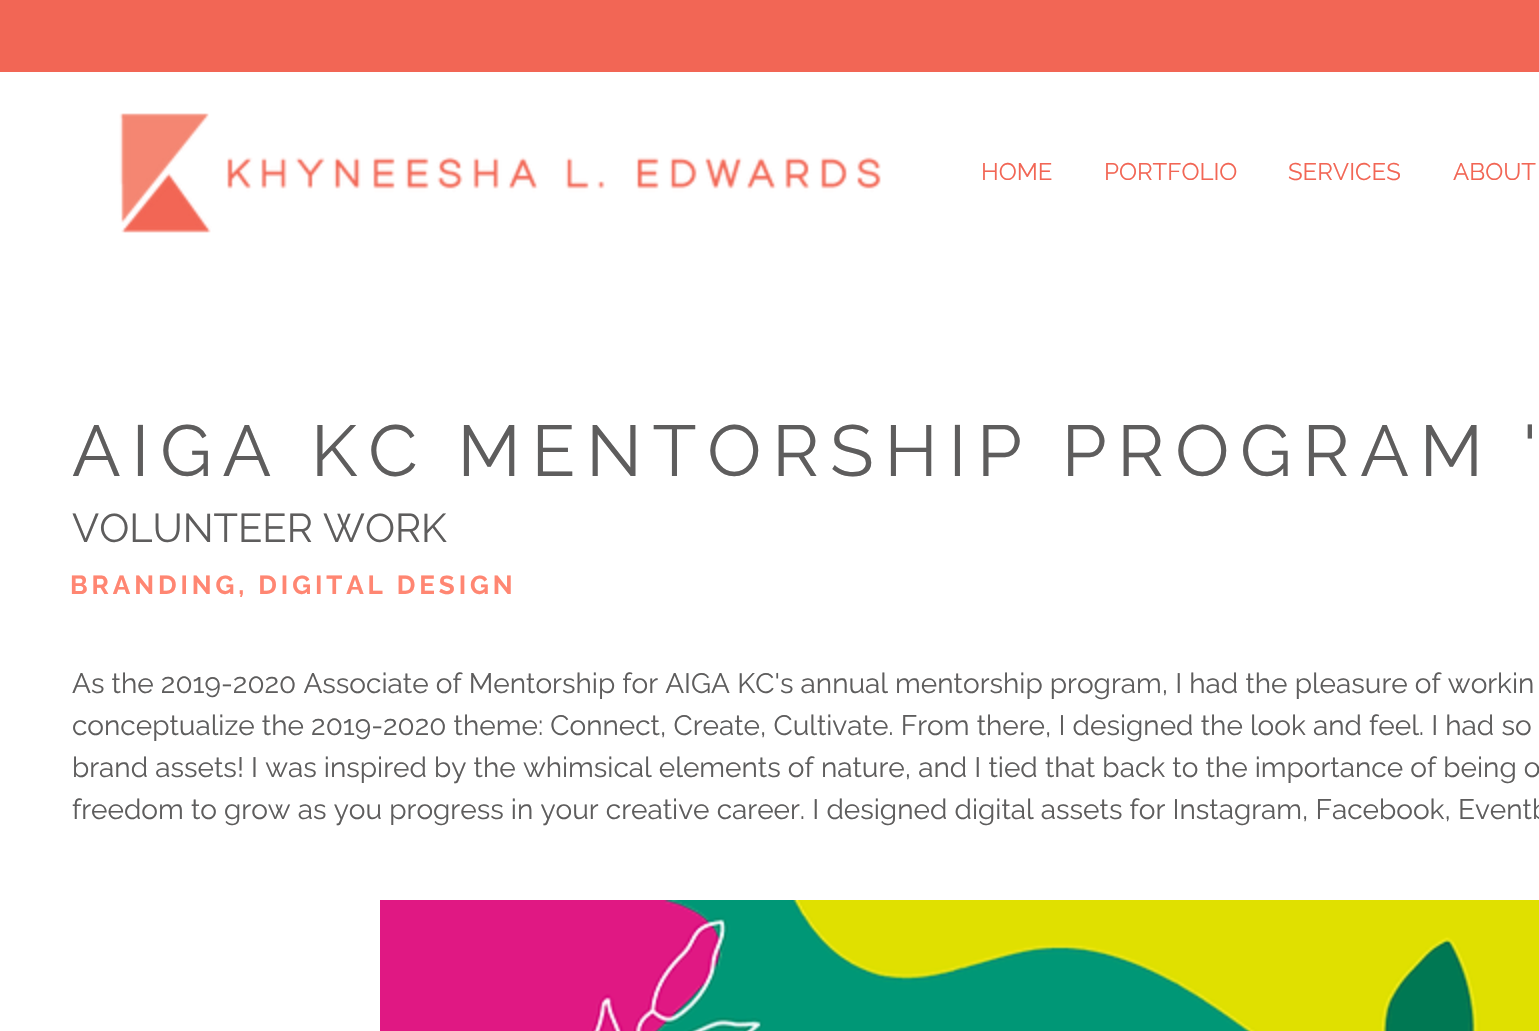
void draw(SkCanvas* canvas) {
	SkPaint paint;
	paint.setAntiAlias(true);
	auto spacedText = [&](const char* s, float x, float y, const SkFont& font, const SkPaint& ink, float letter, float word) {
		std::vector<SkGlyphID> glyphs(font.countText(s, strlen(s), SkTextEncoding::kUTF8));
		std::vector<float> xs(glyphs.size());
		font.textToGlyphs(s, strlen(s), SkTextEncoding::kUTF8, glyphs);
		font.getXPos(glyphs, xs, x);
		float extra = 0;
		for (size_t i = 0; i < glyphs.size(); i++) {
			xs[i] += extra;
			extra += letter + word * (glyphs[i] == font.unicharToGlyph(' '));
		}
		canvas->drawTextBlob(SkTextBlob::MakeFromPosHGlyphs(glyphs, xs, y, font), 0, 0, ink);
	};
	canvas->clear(0xffffffff);
	paint.setColor(0xfff26655);
	canvas->drawRect(SkRect::MakeXYWH(0, 0, 1539, 72), paint);
	canvas->drawImageRect(SkImages::DeferredFromEncodedData(SkData::MakeFromFileName("img1.png")), SkRect::MakeXYWH(119, 113, 762, 120), SkSamplingOptions());
	SkFont f1(fontMgr->matchFamilyStyle("Raleway", SkFontStyle::Normal()), 24);
	f1.setSubpixel(true);
	canvas->drawString("HOME", 981, 180, f1, paint);
	canvas->drawString("PORTFOLIO", 1104, 180, f1, paint);
	canvas->drawString("SERVICES", 1288, 180, f1, paint);
	canvas->drawString("ABOUT", 1453, 180, f1, paint);
	SkFont f2(fontMgr->matchFamilyStyle("Raleway", SkFontStyle::Normal()), 72);
	f2.setSubpixel(true);
	paint.setColor(0xff5e5d5d);
	spacedText("AIGA KC MENTORSHIP PROGRAM '", 72, 476, f2, paint, 10.8, 0);
	SkFont f3(fontMgr->matchFamilyStyle("Raleway", SkFontStyle::Normal()), 40);
	f3.setSubpixel(true);
	canvas->drawString("VOLUNTEER WORK", 72, 542, f3, paint);
	SkFont f4(fontMgr->matchFamilyStyle("Raleway", SkFontStyle::Bold()), 26);
	f4.setSubpixel(true);
	paint.setColor(0xffff8672);
	spacedText("BRANDING, DIGITAL DESIGN", 70, 594, f4, paint, 3.9, 0);
	SkFont f5(fontMgr->matchFamilyStyle("Raleway", SkFontStyle::Normal()), 28);
	f5.setSubpixel(true);
	paint.setColor(0xff5e5d5d);
	canvas->drawString("As the 2019-2020 Associate of Mentorship for AIGA KC's annual mentorship program, I had the pleasure of workin", 72, 693, f5, paint);
	canvas->drawString("conceptualize the 2019-2020 theme: Connect, Create, Cultivate. From there, I designed the look and feel. I had so", 72, 735, f5, paint);
	canvas->drawString("brand assets! I was inspired by the whimsical elements of nature, and I tied that back to the importance of being o", 72, 777, f5, paint);
	canvas->drawString("freedom to grow as you progress in your creative career. I designed digital assets for Instagram, Facebook, Eventb", 72, 819, f5, paint);
	canvas->drawImageRect(SkImages::DeferredFromEncodedData(SkData::MakeFromFileName("img2.png")), SkRect::MakeXYWH(380, 900, 1159, 131), SkSamplingOptions());
}
